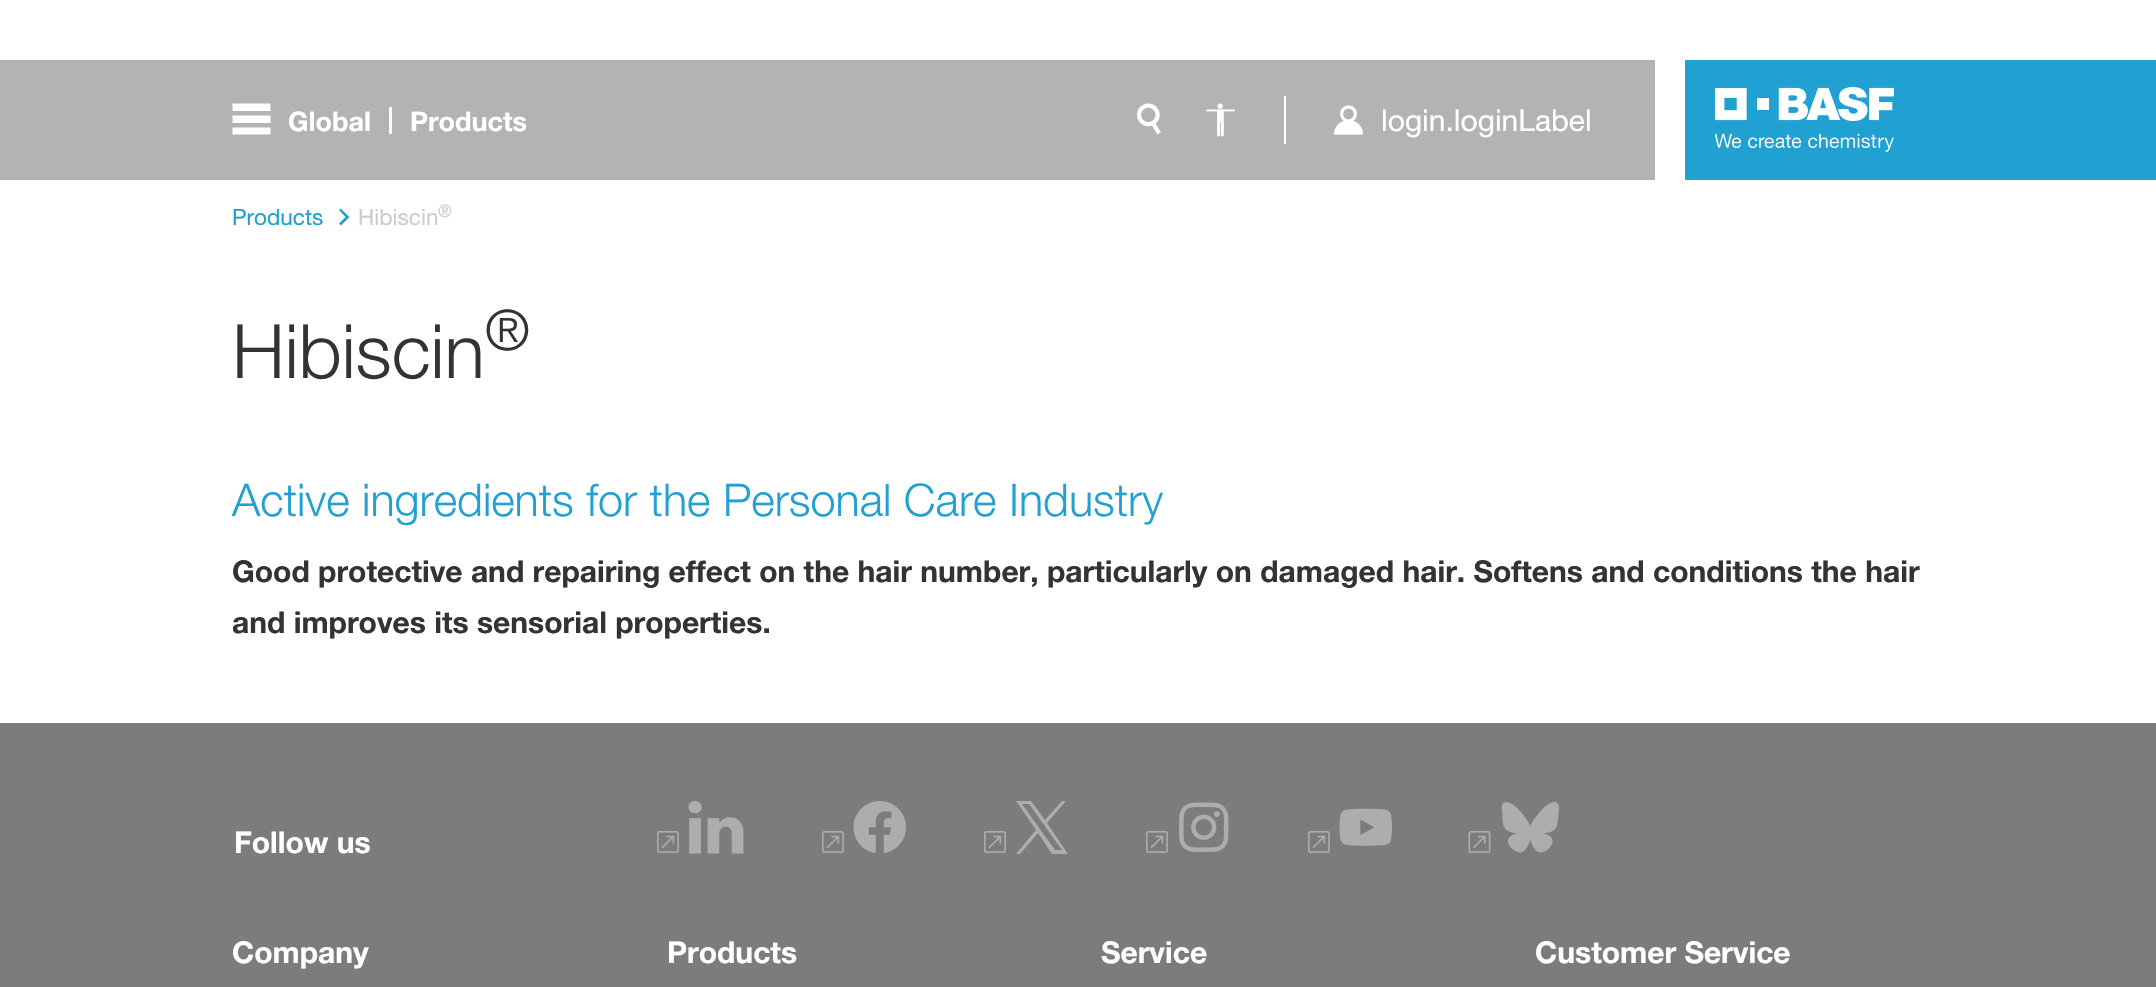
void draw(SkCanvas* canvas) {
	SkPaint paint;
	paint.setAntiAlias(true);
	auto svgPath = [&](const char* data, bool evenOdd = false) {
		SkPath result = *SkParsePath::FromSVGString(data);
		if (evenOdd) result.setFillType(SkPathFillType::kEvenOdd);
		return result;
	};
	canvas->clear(0xffffffff);
	paint.setColor(0xffb3b3b3);
	canvas->drawRect(SkRect::MakeXYWH(0, 60, 1655, 120), paint);
	paint.setColor(0xffffffff);
	canvas->drawPath(svgPath("M232.5 103.5H270.5V111H232.5ZM232.5 115.5H270.5V123H232.5ZM232.5 127.5H270.5V134.5H232.5Z"), paint);
	SkFont f1(fontMgr->matchFamilyStyle("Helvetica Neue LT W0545", SkFontStyle::Bold()), 27);
	f1.setSubpixel(true);
	canvas->drawString("Global", 288, 131, f1, paint);
	canvas->drawRect(SkRect::MakeXYWH(389, 107, 3, 27), paint);
	canvas->drawString("Products", 410, 131, f1, paint);
	canvas->drawImageRect(SkImages::DeferredFromEncodedData(SkData::MakeFromFileName("img1.png")), SkRect::MakeXYWH(1137, 103, 24, 32), SkSamplingOptions());
	canvas->drawImageRect(SkImages::DeferredFromEncodedData(SkData::MakeFromFileName("img2.png")), SkRect::MakeXYWH(1206, 103, 29, 34), SkSamplingOptions());
	canvas->drawRect(SkRect::MakeXYWH(1284, 96, 2, 48), paint);
	canvas->drawImageRect(SkImages::DeferredFromEncodedData(SkData::MakeFromFileName("img3.png")), SkRect::MakeXYWH(1333, 105, 31, 30), SkSamplingOptions());
	SkFont f2(fontMgr->matchFamilyStyle("Helvetica Neue LT W0545", SkFontStyle::Normal()), 30);
	f2.setSubpixel(true);
	canvas->drawString("login.loginLabel", 1381, 131, f2, paint);
	paint.setColor(0xff21a0d2);
	canvas->drawRect(SkRect::MakeXYWH(1685, 60, 471, 120), paint);
	canvas->drawImageRect(SkImages::DeferredFromEncodedData(SkData::MakeFromFileName("img4.png")), SkRect::MakeXYWH(1715, 87, 179, 65), SkSamplingOptions());
	SkFont f3(fontMgr->matchFamilyStyle("Helvetica Neue LT W0545", SkFontStyle::Normal()), 22.5);
	f3.setSubpixel(true);
	canvas->drawString("Products", 232, 225, f3, paint);
	canvas->drawPath(svgPath("M349.5 217L341 225.5L339 223.5L345.5 217L339 210L340.5 208.5Z"), paint);
	paint.setColor(0xffcdcdcd);
	canvas->drawString("Hibiscin", 358, 225, f3, paint);
	SkFont f4(fontMgr->matchFamilyStyle("Helvetica Neue LT W0545", SkFontStyle::Normal()), 17);
	f4.setSubpixel(true);
	canvas->drawString("®", 438, 217, f4, paint);
	SkFont f5(fontMgr->matchFamilyStyle("Helvetica Neue LT W0545", SkFontStyle(300, SkFontStyle::kNormal_Width, SkFontStyle::kUpright_Slant)), 75);
	f5.setSubpixel(true);
	paint.setColor(0xff333333);
	canvas->drawString("Hibiscin", 232, 378, f5, paint);
	SkFont f6(fontMgr->matchFamilyStyle("Helvetica Neue LT W0545", SkFontStyle(300, SkFontStyle::kNormal_Width, SkFontStyle::kUpright_Slant)), 56);
	f6.setSubpixel(true);
	canvas->drawString("®", 485, 350, f6, paint);
	SkFont f7(fontMgr->matchFamilyStyle("Helvetica Neue LT W0545", SkFontStyle(300, SkFontStyle::kNormal_Width, SkFontStyle::kUpright_Slant)), 45);
	f7.setSubpixel(true);
	paint.setColor(0xff21a0d2);
	canvas->drawString("Active ingredients for the Personal Care Industry", 232, 516, f7, paint);
	SkFont f8(fontMgr->matchFamilyStyle("Helvetica Neue LT W0545", SkFontStyle::Bold()), 30);
	f8.setSubpixel(true);
	paint.setColor(0xff333333);
	canvas->drawString("Good protective and repairing effect on the hair number, particularly on damaged hair. Softens and conditions the hair", 232, 582, f8, paint);
	canvas->drawString("and improves its sensorial properties.", 232, 633, f8, paint);
	paint.setColor(0xff7c7c7c);
	canvas->drawRect(SkRect::MakeXYWH(0, 723, 2156, 264), paint);
	paint.setColor(0xffffffff);
	canvas->drawString("Follow us", 234, 853, f8, paint);
	canvas->drawImageRect(SkImages::DeferredFromEncodedData(SkData::MakeFromFileName("img5.png")), SkRect::MakeXYWH(657, 831, 22, 22), SkSamplingOptions());
	canvas->drawImageRect(SkImages::DeferredFromEncodedData(SkData::MakeFromFileName("img6.png")), SkRect::MakeXYWH(688, 801, 56, 53), SkSamplingOptions());
	canvas->drawImageRect(SkImages::DeferredFromEncodedData(SkData::MakeFromFileName("img5.png")), SkRect::MakeXYWH(822, 831, 22, 22), SkSamplingOptions());
	canvas->drawImageRect(SkImages::DeferredFromEncodedData(SkData::MakeFromFileName("img7.png")), SkRect::MakeXYWH(853, 801, 53, 52), SkSamplingOptions());
	canvas->drawImageRect(SkImages::DeferredFromEncodedData(SkData::MakeFromFileName("img5.png")), SkRect::MakeXYWH(984, 831, 22, 22), SkSamplingOptions());
	paint.setColor(0xffadadad);
	canvas->drawPath(svgPath("M1047 823L1066 801H1062L1045 820L1031 801H1016L1036 830L1016 854H1020L1038 833L1052 854H1068ZM1022 804H1029L1062 850H1055Z"), paint);
	canvas->drawImageRect(SkImages::DeferredFromEncodedData(SkData::MakeFromFileName("img5.png")), SkRect::MakeXYWH(1146, 831, 22, 22), SkSamplingOptions());
	canvas->drawImageRect(SkImages::DeferredFromEncodedData(SkData::MakeFromFileName("img8.png")), SkRect::MakeXYWH(1179, 802, 50, 50), SkSamplingOptions());
	canvas->drawImageRect(SkImages::DeferredFromEncodedData(SkData::MakeFromFileName("img5.png")), SkRect::MakeXYWH(1308, 831, 22, 22), SkSamplingOptions());
	canvas->drawImageRect(SkImages::DeferredFromEncodedData(SkData::MakeFromFileName("img9.png")), SkRect::MakeXYWH(1339, 808, 53, 38), SkSamplingOptions());
	canvas->drawImageRect(SkImages::DeferredFromEncodedData(SkData::MakeFromFileName("img10.png")), SkRect::MakeXYWH(1468, 831, 23, 22), SkSamplingOptions());
	canvas->drawImageRect(SkImages::DeferredFromEncodedData(SkData::MakeFromFileName("img11.png")), SkRect::MakeXYWH(1501, 802, 58, 51), SkSamplingOptions());
	paint.setColor(0xffffffff);
	canvas->drawString("Company", 232, 963, f8, paint);
	canvas->drawString("Products", 667, 963, f8, paint);
	canvas->drawString("Service", 1101, 963, f8, paint);
	canvas->drawString("Customer Service", 1535, 963, f8, paint);
}
